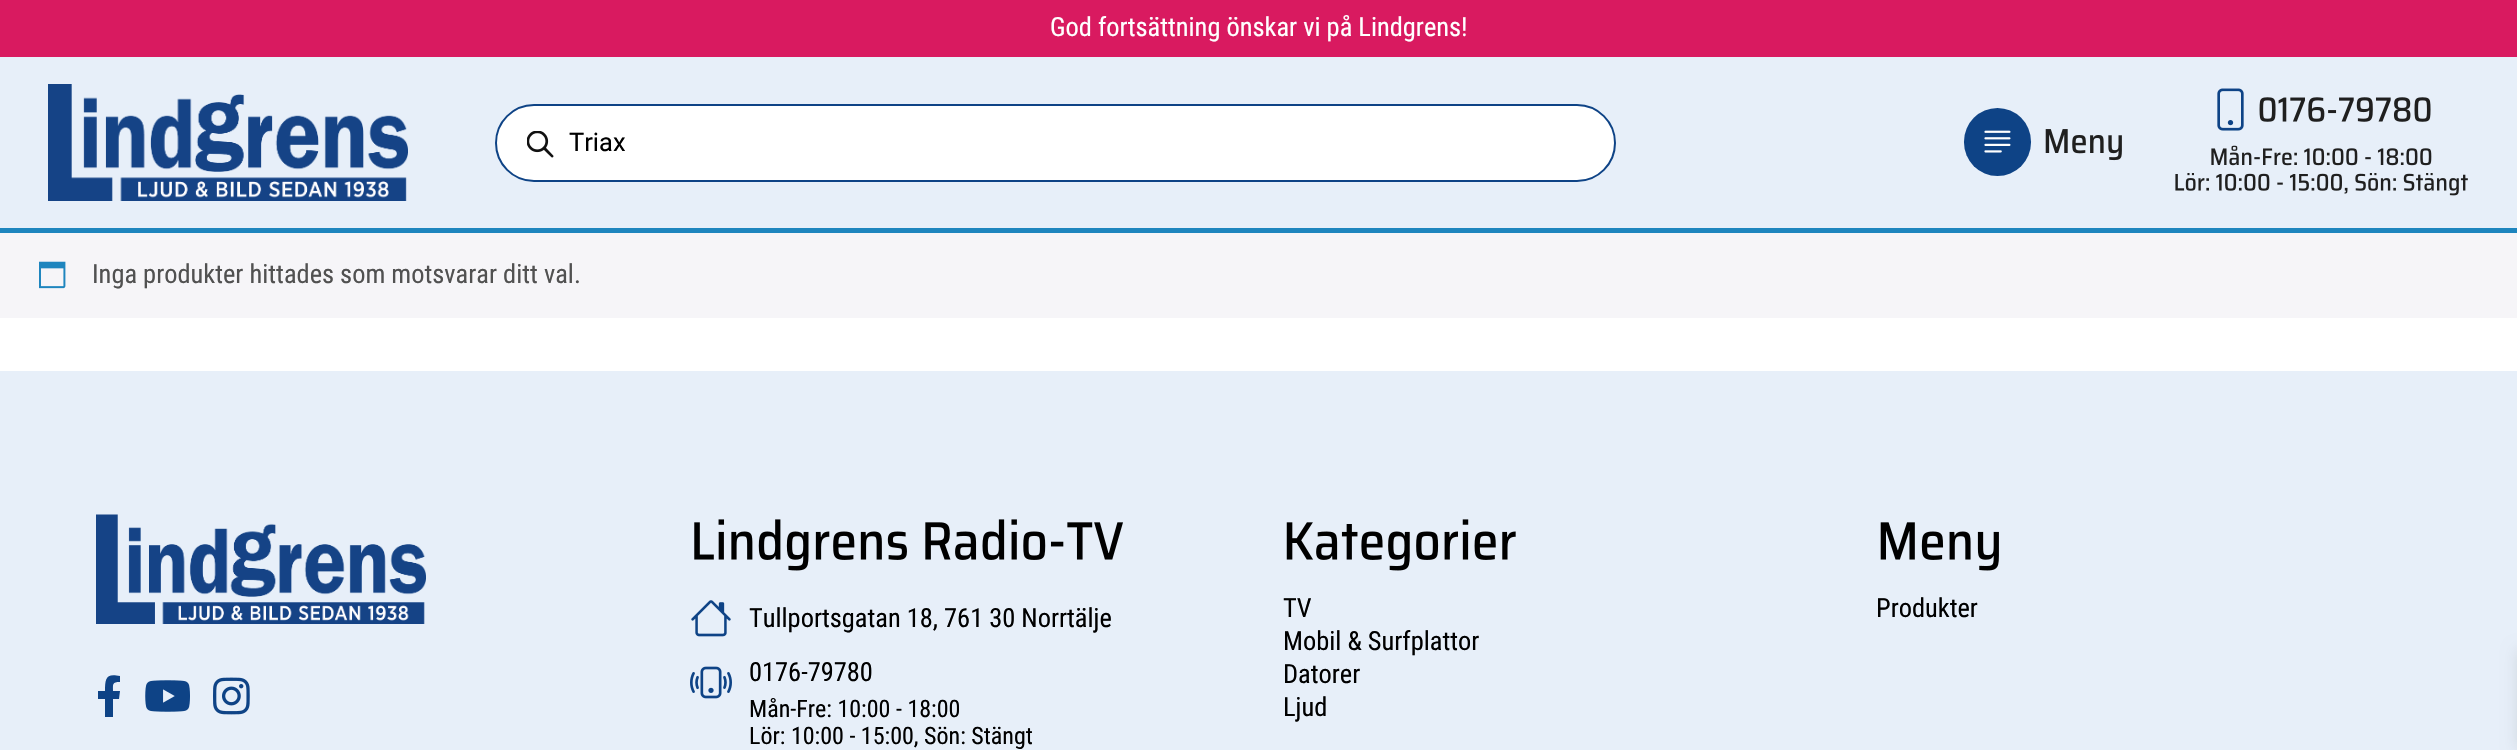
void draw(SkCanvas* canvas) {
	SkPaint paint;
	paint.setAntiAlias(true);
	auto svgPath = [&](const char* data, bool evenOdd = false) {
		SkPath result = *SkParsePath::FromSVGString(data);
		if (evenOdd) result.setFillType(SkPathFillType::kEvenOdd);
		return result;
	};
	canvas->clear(0xffffffff);
	paint.setColor(0xffd91a60);
	canvas->drawRect(SkRect::MakeXYWH(0, 0, 2517, 57), paint);
	SkFont f1(fontMgr->matchFamilyStyle("Roboto Condensed", SkFontStyle::Normal()), 26.4);
	f1.setSubpixel(true);
	paint.setColor(0xffffffff);
	canvas->drawString("God fortsättning önskar vi på Lindgrens!", 1050, 36, f1, paint);
	paint.setColor(0xffe7eff9);
	canvas->drawRect(SkRect::MakeXYWH(0, 57, 2517, 171), paint);
	canvas->drawImageRect(SkImages::DeferredFromEncodedData(SkData::MakeFromFileName("img1.png")), SkRect::MakeXYWH(48, 84, 360, 117), SkSamplingOptions());
	paint.setColor(0xffffffff);
	canvas->drawRoundRect(SkRect::MakeXYWH(496, 105, 1119, 76), 38, 38, paint);
	paint.setStroke(true);
	paint.setStrokeWidth(2);
	paint.setColor(0xff0e4386);
	canvas->drawRoundRect(SkRect::MakeXYWH(496, 105, 1119, 76), 38, 38, paint);
	canvas->drawImageRect(SkImages::DeferredFromEncodedData(SkData::MakeFromFileName("img2.png")), SkRect::MakeXYWH(527, 131, 27, 27), SkSamplingOptions());
	SkFont f2(fontMgr->matchFamilyStyle("Roboto", SkFontStyle::Normal()), 25.5);
	f2.setSubpixel(true);
	paint.setStroke(false);
	paint.setColor(0xff000000);
	canvas->drawString("Triax", 569, 151, f2, paint);
	paint.setColor(0xff0e4386);
	canvas->drawRoundRect(SkRect::MakeXYWH(1964, 108, 67, 68), 33.5, 33.5, paint);
	canvas->drawImageRect(SkImages::DeferredFromEncodedData(SkData::MakeFromFileName("img3.png")), SkRect::MakeXYWH(1984, 130, 27, 23), SkSamplingOptions());
	canvas->drawImageRect(SkImages::DeferredFromEncodedData(SkData::MakeFromFileName("img4.png")), SkRect::MakeXYWH(2045, 129, 77, 32), SkSamplingOptions());
	canvas->drawImageRect(SkImages::DeferredFromEncodedData(SkData::MakeFromFileName("img5.png")), SkRect::MakeXYWH(2217, 88, 27, 43), SkSamplingOptions());
	canvas->drawImageRect(SkImages::DeferredFromEncodedData(SkData::MakeFromFileName("img6.png")), SkRect::MakeXYWH(2259, 97, 172, 25), SkSamplingOptions());
	canvas->drawImageRect(SkImages::DeferredFromEncodedData(SkData::MakeFromFileName("img7.png")), SkRect::MakeXYWH(2211, 145, 221, 21), SkSamplingOptions());
	canvas->drawImageRect(SkImages::DeferredFromEncodedData(SkData::MakeFromFileName("img8.png")), SkRect::MakeXYWH(2175, 173, 293, 23), SkSamplingOptions());
	paint.setColor(0xfff6f5f8);
	canvas->drawRect(SkRect::MakeXYWH(0, 233, 2517, 85), paint);
	paint.setColor(0xff1e85be);
	canvas->drawRect(SkRect::MakeXYWH(0, 228, 2517, 5), paint);
	canvas->drawImageRect(SkImages::DeferredFromEncodedData(SkData::MakeFromFileName("img9.png")), SkRect::MakeXYWH(39, 261, 27, 28), SkSamplingOptions());
	paint.setColor(0xff515151);
	canvas->drawString("Inga produkter hittades som motsvarar ditt val.", 92, 283, f1, paint);
	paint.setColor(0xffe7eff9);
	canvas->drawRect(SkRect::MakeXYWH(0, 371, 2517, 379), paint);
	canvas->drawImageRect(SkImages::DeferredFromEncodedData(SkData::MakeFromFileName("img10.png")), SkRect::MakeXYWH(96, 514, 330, 110), SkSamplingOptions());
	paint.setColor(0xff0e4386);
	canvas->drawPath(svgPath("M119 699L120 691H113C113 684 112 682 120 682V676C106 673 105 678 105 691H98V699H105V717H113V699Z"), paint);
	canvas->drawImageRect(SkImages::DeferredFromEncodedData(SkData::MakeFromFileName("img11.png")), SkRect::MakeXYWH(145, 680, 45, 32), SkSamplingOptions());
	canvas->drawImageRect(SkImages::DeferredFromEncodedData(SkData::MakeFromFileName("img12.png")), SkRect::MakeXYWH(213, 677, 37, 38), SkSamplingOptions());
	canvas->drawImageRect(SkImages::DeferredFromEncodedData(SkData::MakeFromFileName("img13.png")), SkRect::MakeXYWH(694, 519, 429, 52), SkSamplingOptions());
	canvas->drawImageRect(SkImages::DeferredFromEncodedData(SkData::MakeFromFileName("img14.png")), SkRect::MakeXYWH(691, 600, 40, 37), SkSamplingOptions());
	paint.setColor(0xff000000);
	canvas->drawString("Tullportsgatan 18, 761 30 Norrtälje", 749, 627, f1, paint);
	canvas->drawImageRect(SkImages::DeferredFromEncodedData(SkData::MakeFromFileName("img15.png")), SkRect::MakeXYWH(690, 666, 42, 33), SkSamplingOptions());
	canvas->drawString("0176-79780", 749, 681, f1, paint);
	SkFont f3(fontMgr->matchFamilyStyle("Roboto Condensed", SkFontStyle::Normal()), 24);
	f3.setSubpixel(true);
	canvas->drawString("Mån-Fre: 10:00 - 18:00", 749, 717, f3, paint);
	canvas->drawString("Lör: 10:00 - 15:00, Sön: Stängt", 749, 744, f3, paint);
	canvas->drawImageRect(SkImages::DeferredFromEncodedData(SkData::MakeFromFileName("img16.png")), SkRect::MakeXYWH(1286, 519, 230, 52), SkSamplingOptions());
	canvas->drawString("TV", 1283, 617, f1, paint);
	canvas->drawString("Mobil & Surfplattor", 1283, 650, f1, paint);
	canvas->drawString("Datorer", 1283, 683, f1, paint);
	canvas->drawString("Ljud", 1283, 716, f1, paint);
	canvas->drawImageRect(SkImages::DeferredFromEncodedData(SkData::MakeFromFileName("img17.png")), SkRect::MakeXYWH(1880, 522, 119, 49), SkSamplingOptions());
	canvas->drawString("Produkter", 1876, 617, f1, paint);
	paint.setColor(0x1a000000);
	paint.setMaskFilter(SkMaskFilter::MakeBlur(kNormal_SkBlurStyle, 7.5));
	canvas->drawRect(SkRect::MakeXYWH(2517, 650, 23, 99), paint);
	paint.setMaskFilter(nullptr);
}
